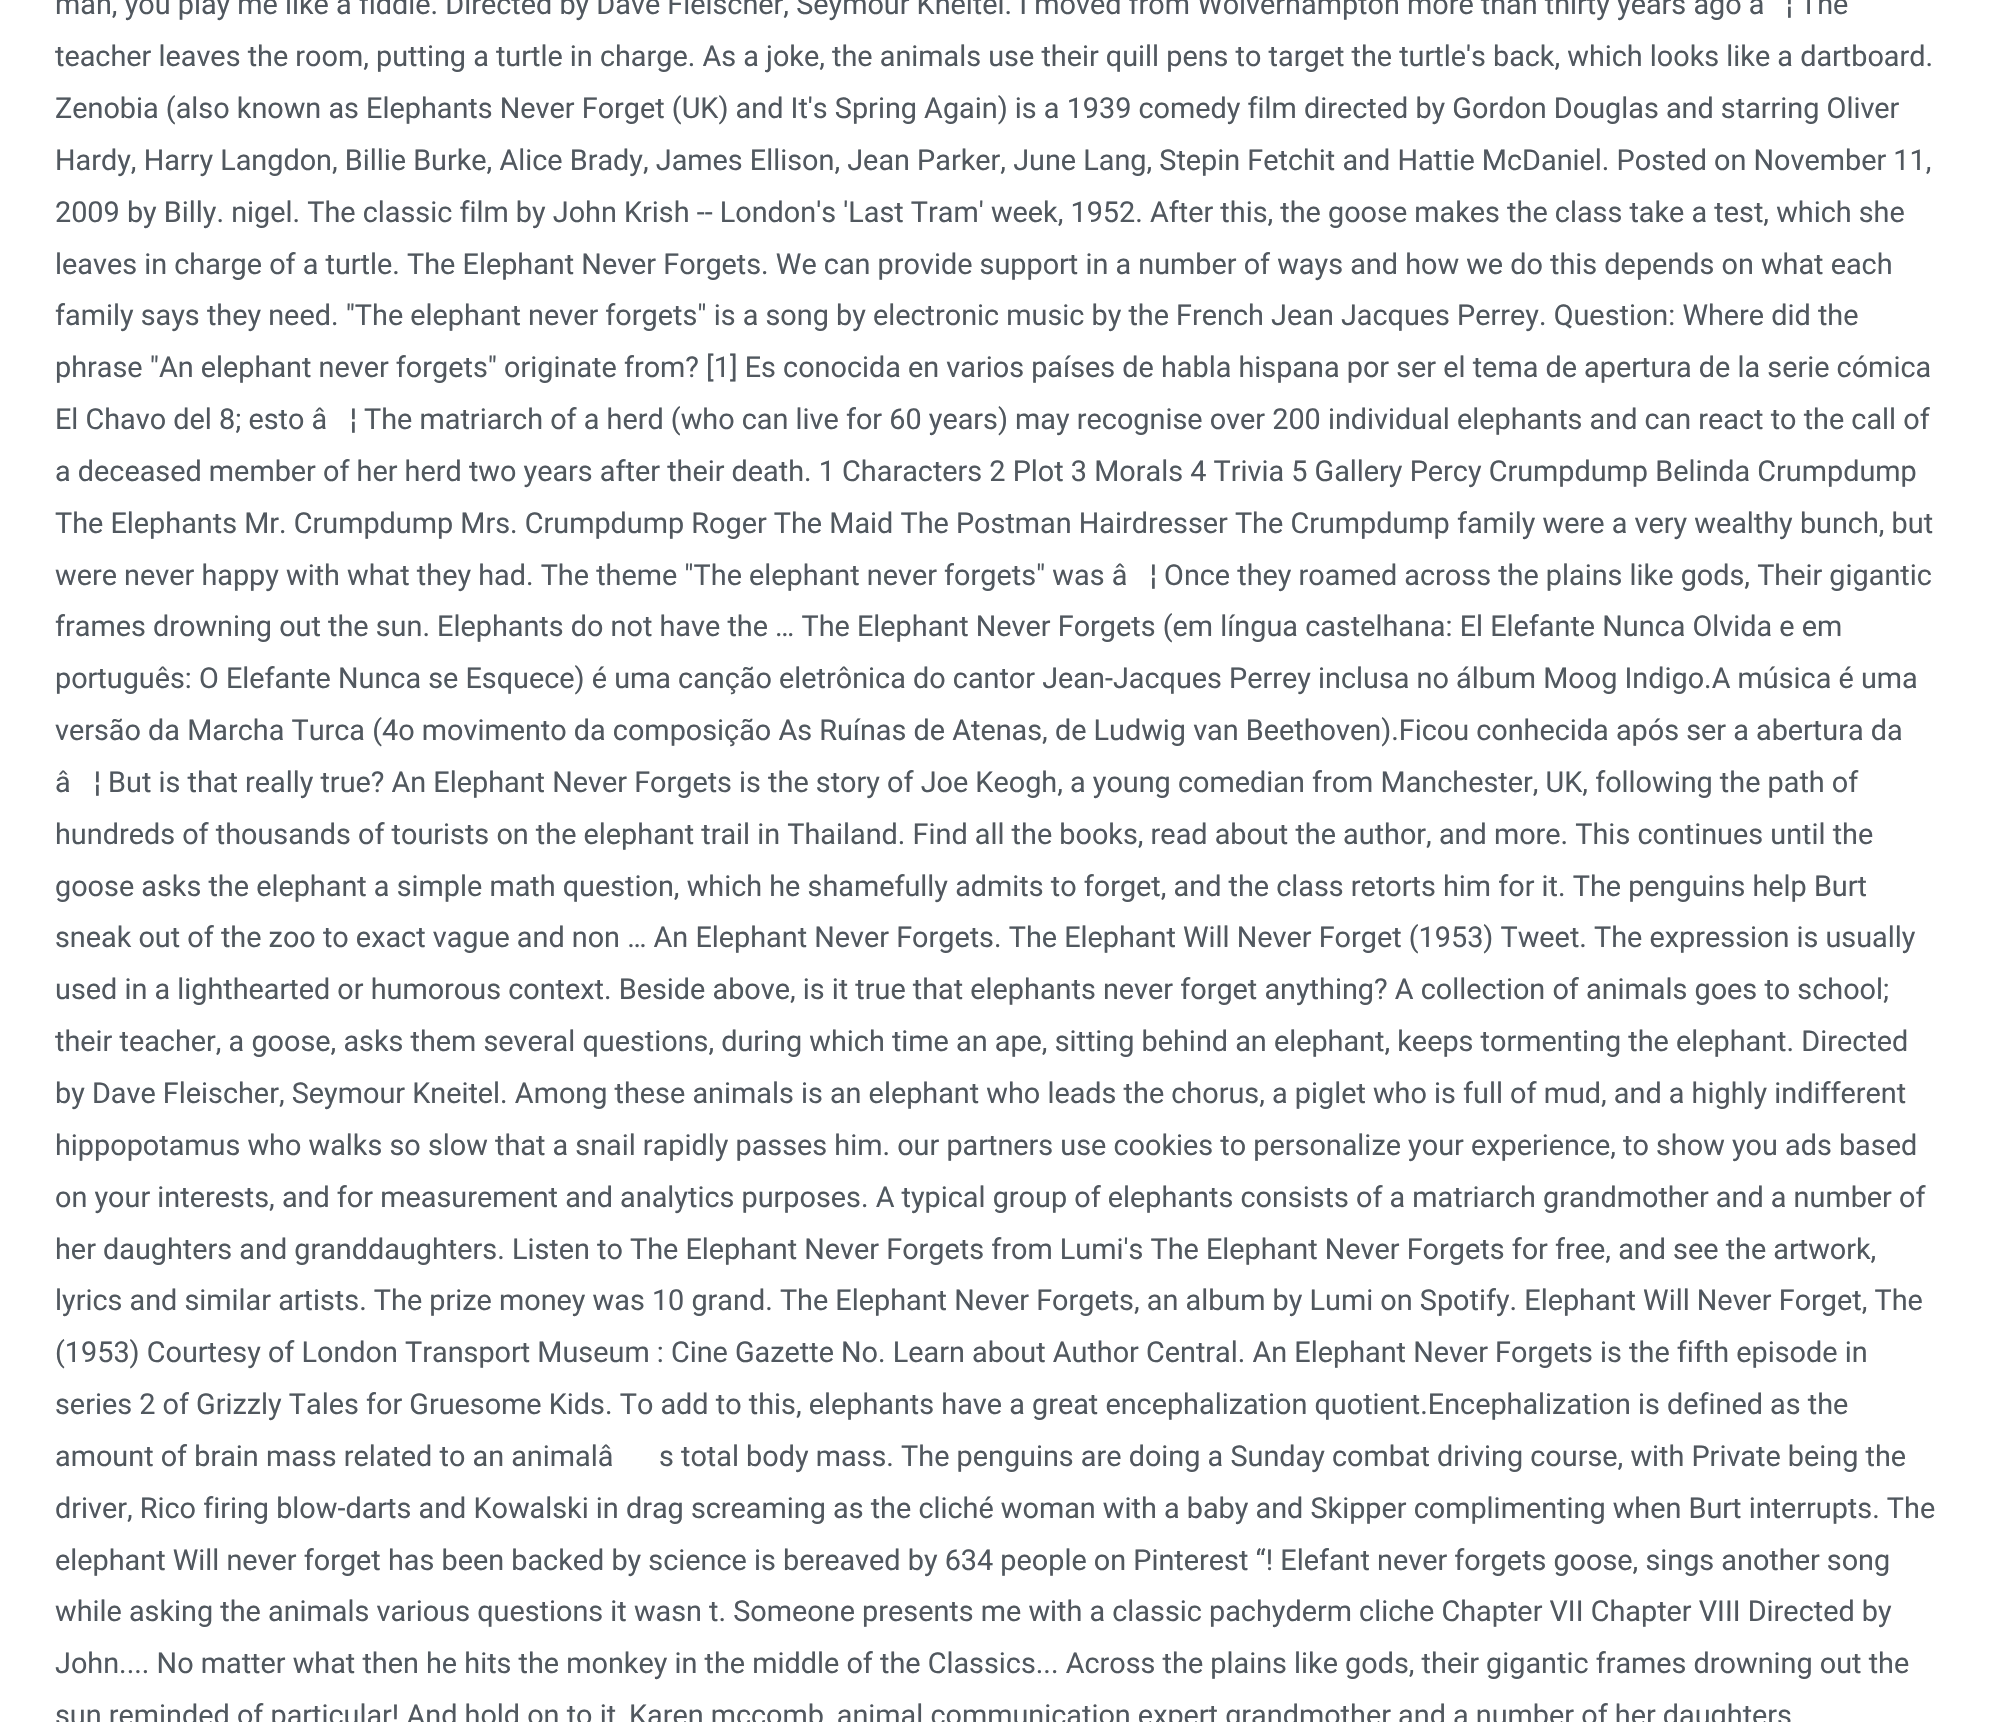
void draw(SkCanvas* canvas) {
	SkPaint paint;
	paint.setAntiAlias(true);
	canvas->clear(0xffffffff);
	SkFont f1(fontMgr->matchFamilyStyle("Roboto", SkFontStyle::Normal()), 28.8);
	f1.setSubpixel(true);
	paint.setColor(0xff51585f);
	canvas->drawString("man, you play me like a fiddle. Directed by Dave Fleischer, Seymour Kneitel. I moved from Wolverhampton more than thirty years ago â", 55, 14, f1, paint);
	canvas->drawString("¦ The", 1786, 14, f1, paint);
	canvas->drawString("teacher leaves the room, putting a turtle in charge. As a joke, the animals use their quill pens to target the turtle's back, which looks like a dartboard.", 55, 66, f1, paint);
	canvas->drawString("Zenobia (also known as Elephants Never Forget (UK) and It's Spring Again) is a 1939 comedy film directed by Gordon Douglas and starring Oliver", 55, 118, f1, paint);
	canvas->drawString("Hardy, Harry Langdon, Billie Burke, Alice Brady, James Ellison, Jean Parker, June Lang, Stepin Fetchit and Hattie McDaniel. Posted on November 11,", 55, 170, f1, paint);
	canvas->drawString("2009 by Billy. nigel. The classic film by John Krish -- London's 'Last Tram' week, 1952. After this, the goose makes the class take a test, which she", 55, 222, f1, paint);
	canvas->drawString("leaves in charge of a turtle. The Elephant Never Forgets. We can provide support in a number of ways and how we do this depends on what each", 55, 274, f1, paint);
	canvas->drawString("family says they need. \"The elephant never forgets\" is a song by electronic music by the French Jean Jacques Perrey. Question: Where did the", 55, 325, f1, paint);
	canvas->drawString("phrase \"An elephant never forgets\" originate from? [1] Es conocida en varios países de habla hispana por ser el tema de apertura de la serie cómica", 55, 377, f1, paint);
	canvas->drawString("El Chavo del 8; esto â", 55, 429, f1, paint);
	canvas->drawString("¦ The matriarch of a herd (who can live for 60 years) may recognise over 200 individual elephants and can react to the call of", 350, 429, f1, paint);
	canvas->drawString("a deceased member of her herd two years after their death. 1 Characters 2 Plot 3 Morals 4 Trivia 5 Gallery Percy Crumpdump Belinda Crumpdump", 55, 481, f1, paint);
	canvas->drawString("The Elephants Mr. Crumpdump Mrs. Crumpdump Roger The Maid The Postman Hairdresser The Crumpdump family were a very wealthy bunch, but", 55, 533, f1, paint);
	canvas->drawString("were never happy with what they had. The theme \"The elephant never forgets\" was â", 55, 585, f1, paint);
	canvas->drawString("¦ Once they roamed across the plains like gods, Their gigantic", 1150, 585, f1, paint);
	canvas->drawString("frames drowning out the sun. Elephants do not have the … The Elephant Never Forgets (em língua castelhana: El Elefante Nunca Olvida e em", 55, 636, f1, paint);
	canvas->drawString("português: O Elefante Nunca se Esquece) é uma canção eletrônica do cantor Jean-Jacques Perrey inclusa no álbum Moog Indigo.A música é uma", 55, 688, f1, paint);
	canvas->drawString("versão da Marcha Turca (4o movimento da composição As Ruínas de Atenas, de Ludwig van Beethoven).Ficou conhecida após ser a abertura da", 55, 740, f1, paint);
	canvas->drawString("â", 55, 792, f1, paint);
	canvas->drawString("¦ But is that really true? An Elephant Never Forgets is the story of Joe Keogh, a young comedian from Manchester, UK, following the path of", 94, 792, f1, paint);
	canvas->drawString("hundreds of thousands of tourists on the elephant trail in Thailand. Find all the books, read about the author, and more. This continues until the", 55, 844, f1, paint);
	canvas->drawString("goose asks the elephant a simple math question, which he shamefully admits to forget, and the class retorts him for it. The penguins help Burt", 55, 896, f1, paint);
	canvas->drawString("sneak out of the zoo to exact vague and non … An Elephant Never Forgets. The Elephant Will Never Forget (1953) Tweet. The expression is usually", 55, 947, f1, paint);
	canvas->drawString("used in a lighthearted or humorous context. Beside above, is it true that elephants never forget anything? A collection of animals goes to school;", 55, 999, f1, paint);
	canvas->drawString("their teacher, a goose, asks them several questions, during which time an ape, sitting behind an elephant, keeps tormenting the elephant. Directed", 55, 1051, f1, paint);
	canvas->drawString("by Dave Fleischer, Seymour Kneitel. Among these animals is an elephant who leads the chorus, a piglet who is full of mud, and a highly indifferent", 55, 1103, f1, paint);
	canvas->drawString("hippopotamus who walks so slow that a snail rapidly passes him. our partners use cookies to personalize your experience, to show you ads based", 55, 1155, f1, paint);
	canvas->drawString("on your interests, and for measurement and analytics purposes. A typical group of elephants consists of a matriarch grandmother and a number of", 55, 1207, f1, paint);
	canvas->drawString("her daughters and granddaughters. Listen to The Elephant Never Forgets from Lumi's The Elephant Never Forgets for free, and see the artwork,", 55, 1259, f1, paint);
	canvas->drawString("lyrics and similar artists. The prize money was 10 grand. The Elephant Never Forgets, an album by Lumi on Spotify. Elephant Will Never Forget, The", 55, 1310, f1, paint);
	canvas->drawString("(1953) Courtesy of London Transport Museum : Cine Gazette No. Learn about Author Central. An Elephant Never Forgets is the fifth episode in", 55, 1362, f1, paint);
	canvas->drawString("series 2 of Grizzly Tales for Gruesome Kids. To add to this, elephants have a great encephalization quotient.Encephalization is defined as the", 55, 1414, f1, paint);
	canvas->drawString("amount of brain mass related to an animalâ", 55, 1466, f1, paint);
	canvas->drawString("s total body mass. The penguins are doing a Sunday combat driving course, with Private being the", 659, 1466, f1, paint);
	canvas->drawString("driver, Rico firing blow-darts and Kowalski in drag screaming as the cliché woman with a baby and Skipper complimenting when Burt interrupts. The", 55, 1518, f1, paint);
	canvas->drawString("elephant Will never forget has been backed by science is bereaved by 634 people on Pinterest “! Elefant never forgets goose, sings another song", 55, 1570, f1, paint);
	canvas->drawString("while asking the animals various questions it wasn t. Someone presents me with a classic pachyderm cliche Chapter VII Chapter VIII Directed by", 55, 1621, f1, paint);
	canvas->drawString("John.... No matter what then he hits the monkey in the middle of the Classics... Across the plains like gods, their gigantic frames drowning out the", 55, 1673, f1, paint);
	canvas->drawString("sun reminded of particular! And hold on to it, Karen mccomb, animal communication expert grandmother and a number of her daughters", 55, 1725, f1, paint);
}
